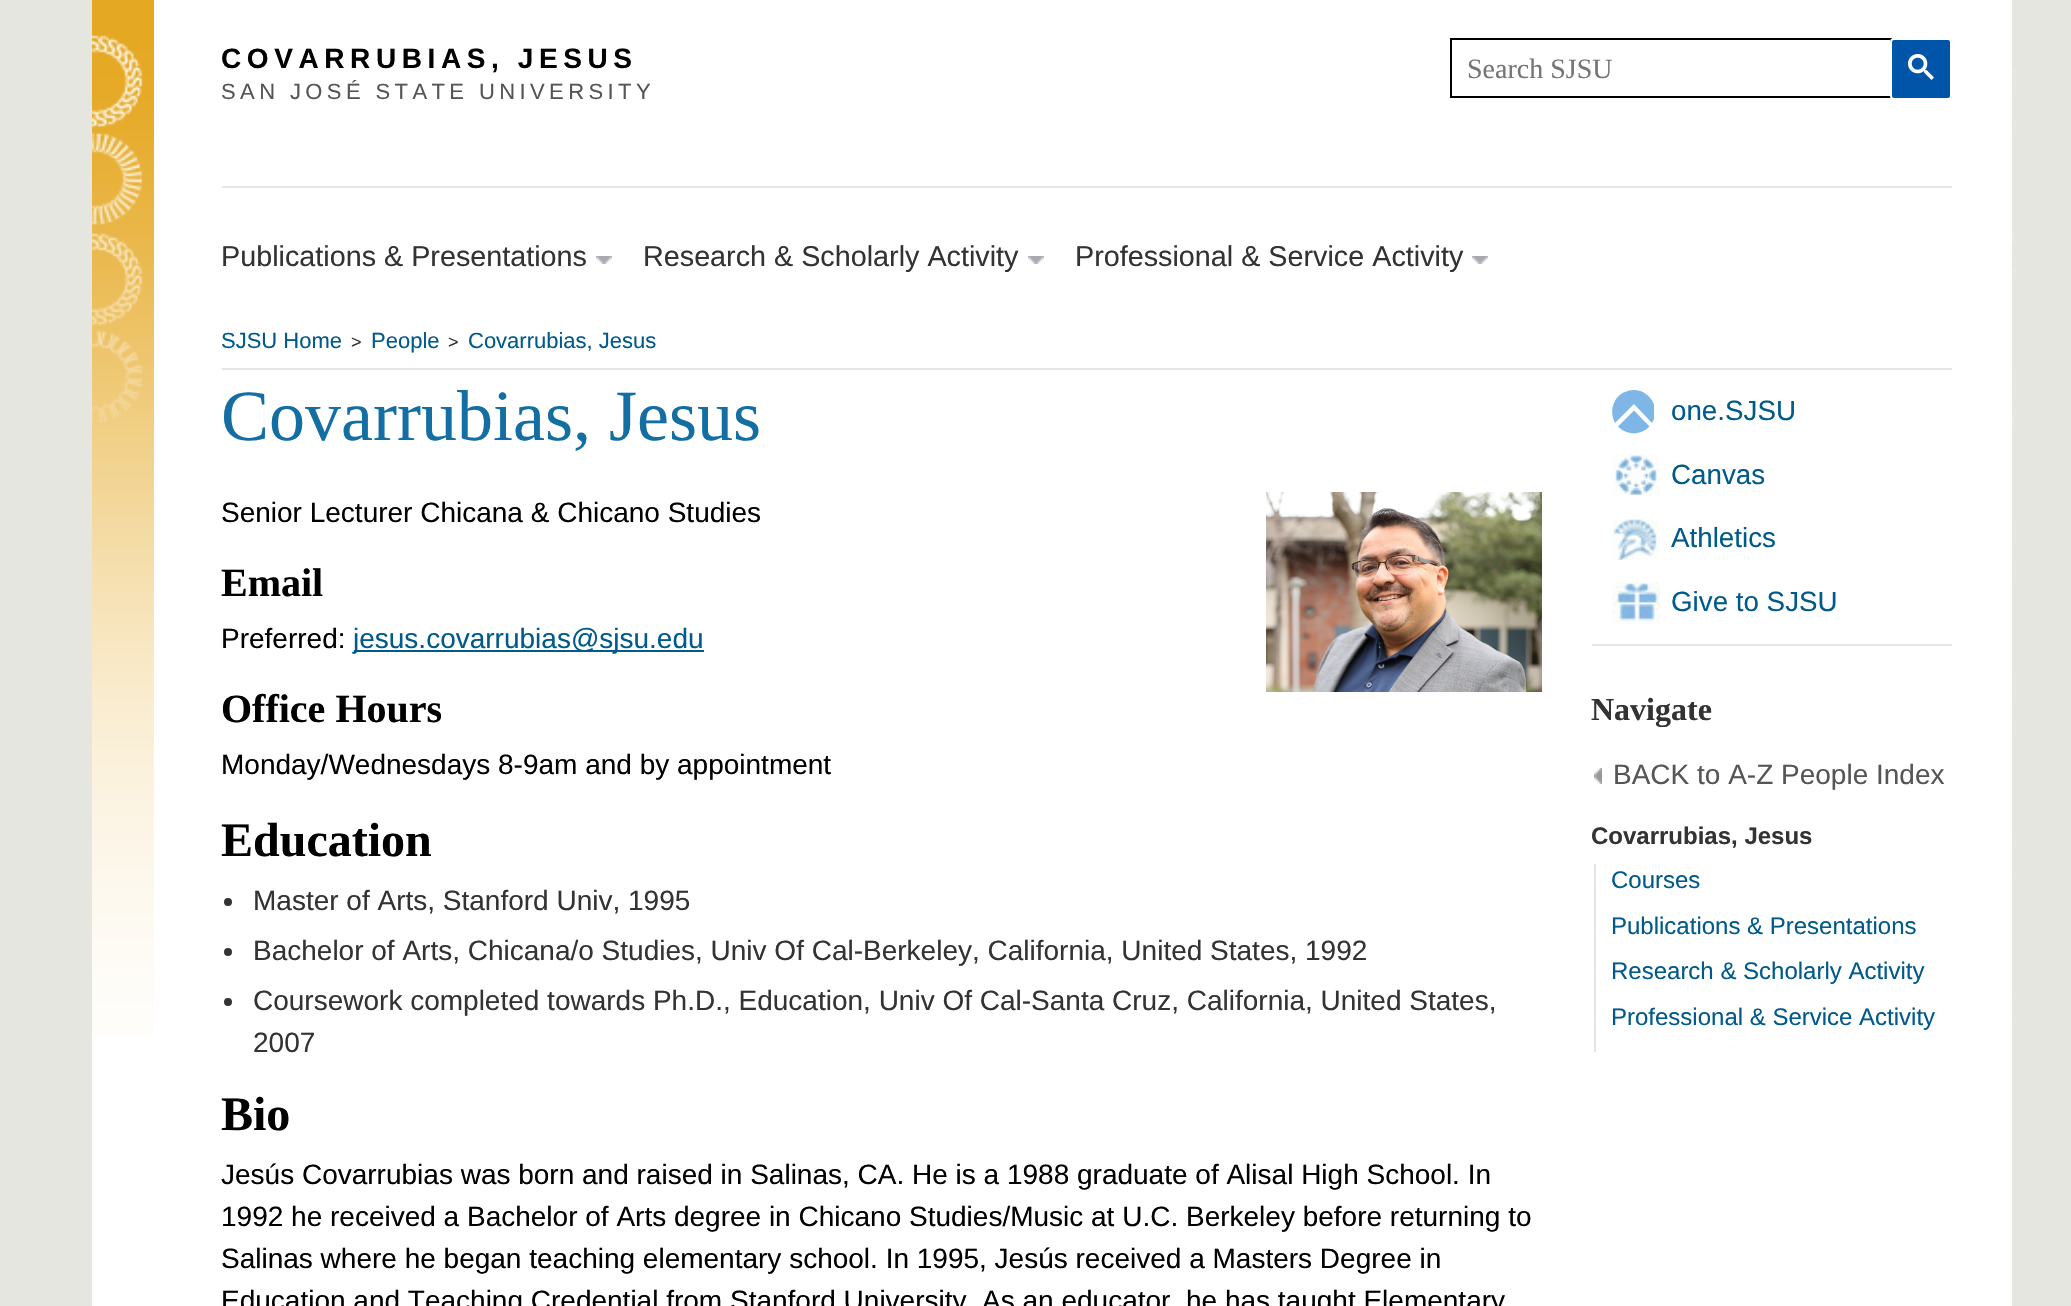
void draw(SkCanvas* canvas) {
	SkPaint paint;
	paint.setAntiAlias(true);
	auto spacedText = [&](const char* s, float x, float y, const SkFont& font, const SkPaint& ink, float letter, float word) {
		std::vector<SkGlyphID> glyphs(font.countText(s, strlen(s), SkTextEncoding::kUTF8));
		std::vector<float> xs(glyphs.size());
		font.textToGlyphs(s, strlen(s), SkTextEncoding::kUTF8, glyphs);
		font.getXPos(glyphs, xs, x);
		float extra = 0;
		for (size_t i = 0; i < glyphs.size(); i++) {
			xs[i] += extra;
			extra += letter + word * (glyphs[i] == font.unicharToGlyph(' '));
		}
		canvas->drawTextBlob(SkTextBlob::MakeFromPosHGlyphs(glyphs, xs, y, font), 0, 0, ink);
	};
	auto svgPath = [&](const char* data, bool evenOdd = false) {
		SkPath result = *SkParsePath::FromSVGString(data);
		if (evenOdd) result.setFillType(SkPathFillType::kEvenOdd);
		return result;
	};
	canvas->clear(0xffe6e6e0);
	canvas->drawImageRect(SkImages::DeferredFromEncodedData(SkData::MakeFromFileName("img1.png")), SkRect::MakeXYWH(2012, 68, 4, 974), SkSamplingOptions());
	paint.setColor(0xffffffff);
	canvas->drawRect(SkRect::MakeXYWH(92, 0, 1920, 1306), paint);
	canvas->drawImageRect(SkImages::DeferredFromEncodedData(SkData::MakeFromFileName("img2.png")), SkRect::MakeXYWH(92, 0, 62, 1035), SkSamplingOptions());
	SkFont f1(fontMgr->matchFamilyStyle("Liberation Sans", SkFontStyle::Bold()), 28);
	f1.setSubpixel(true);
	paint.setColor(0xff000000);
	spacedText("COVARRUBIAS, JESUS", 221, 68, f1, paint, 5.6, 0);
	SkFont f2(fontMgr->matchFamilyStyle("Liberation Sans", SkFontStyle::Normal()), 22);
	f2.setSubpixel(true);
	paint.setColor(0xff555555);
	spacedText("SAN JOSÉ STATE UNIVERSITY", 221, 99, f2, paint, 4.4, 0);
	paint.setStroke(true);
	paint.setStrokeWidth(2);
	paint.setColor(0xff000000);
	canvas->drawRect(SkRect::MakeXYWH(1451, 39, 440, 58), paint);
	SkFont f3(fontMgr->matchFamilyStyle("Liberation Serif", SkFontStyle::Normal()), 28);
	f3.setSubpixel(true);
	paint.setStroke(false);
	paint.setColor(0xff757575);
	canvas->drawString("Search SJSU", 1467, 78, f3, paint);
	paint.setColor(0xff0055a8);
	canvas->drawRoundRect(SkRect::MakeXYWH(1891, 39, 60, 60), 3, 3, paint);
	paint.setStroke(true);
	paint.setColor(0xffffffff);
	canvas->drawRoundRect(SkRect::MakeXYWH(1891, 39, 60, 60), 3, 3, paint);
	canvas->drawImageRect(SkImages::DeferredFromEncodedData(SkData::MakeFromFileName("img3.png")), SkRect::MakeXYWH(1908, 54, 26, 26), SkSamplingOptions());
	paint.setStroke(false);
	paint.setColor(0xffe5e5e5);
	canvas->drawRect(SkRect::MakeXYWH(222, 186, 1730, 2), paint);
	SkFont f4(fontMgr->matchFamilyStyle("Liberation Sans", SkFontStyle::Normal()), 28.75);
	f4.setSubpixel(true);
	paint.setColor(0xff333333);
	canvas->drawString("Publications & Presentations", 221, 266, f4, paint);
	canvas->drawImageRect(SkImages::DeferredFromEncodedData(SkData::MakeFromFileName("img4.png")), SkRect::MakeXYWH(596, 256, 16, 8), SkSamplingOptions());
	canvas->drawString("Research & Scholarly Activity", 643, 266, f4, paint);
	canvas->drawImageRect(SkImages::DeferredFromEncodedData(SkData::MakeFromFileName("img4.png")), SkRect::MakeXYWH(1028, 256, 16, 8), SkSamplingOptions());
	canvas->drawString("Professional & Service Activity", 1075, 266, f4, paint);
	canvas->drawImageRect(SkImages::DeferredFromEncodedData(SkData::MakeFromFileName("img4.png")), SkRect::MakeXYWH(1472, 256, 16, 8), SkSamplingOptions());
	paint.setColor(0xffe5e5e5);
	canvas->drawRect(SkRect::MakeXYWH(222, 368, 1730, 2), paint);
	paint.setColor(0xff005a8b);
	canvas->drawString("SJSU Home", 221, 348, f2, paint);
	SkFont f5(fontMgr->matchFamilyStyle("Liberation Sans", SkFontStyle::Normal()), 18);
	f5.setSubpixel(true);
	paint.setColor(0xff333333);
	canvas->drawString(">", 351, 348, f5, paint);
	paint.setColor(0xff005a8b);
	canvas->drawString("People", 371, 348, f2, paint);
	paint.setColor(0xff333333);
	canvas->drawString(">", 448, 348, f5, paint);
	paint.setColor(0xff005a8b);
	canvas->drawString("Covarrubias, Jesus", 468, 348, f2, paint);
	SkFont f6(fontMgr->matchFamilyStyle("Liberation Serif", SkFontStyle::Normal()), 72);
	f6.setSubpixel(true);
	paint.setColor(0xff136ea3);
	canvas->drawString("Covarrubias, Jesus", 221, 440, f6, paint);
	paint.setColor(0xffe5e5e5);
	canvas->drawRect(SkRect::MakeXYWH(1592, 644, 360, 2), paint);
	canvas->save();
	canvas->clipRect(SkRect::MakeXYWH(1612, 390, 42, 44));
	paint.setColor(0xff7eb6e7);
	canvas->drawPath(svgPath("M1634 404L1652 423C1663 406 1645 383 1625 392C1620 394 1616 398 1614 403C1611 410 1612 417 1615 423Z"), paint);
	canvas->restore();
	canvas->drawPath(svgPath("M1634 410.5L1618 426.5C1626.5 435.5 1641 435.5 1649.5 426.5Z"), paint);
	SkFont f7(fontMgr->matchFamilyStyle("Liberation Sans", SkFontStyle::Normal()), 27.75);
	f7.setSubpixel(true);
	paint.setColor(0xff005a8b);
	canvas->drawString("one.SJSU", 1671, 420, f7, paint);
	canvas->drawImageRect(SkImages::DeferredFromEncodedData(SkData::MakeFromFileName("img5.png")), SkRect::MakeXYWH(1612, 454, 48, 43), SkSamplingOptions());
	canvas->drawString("Canvas", 1671, 484, f7, paint);
	canvas->drawImageRect(SkImages::DeferredFromEncodedData(SkData::MakeFromFileName("img6.png")), SkRect::MakeXYWH(1612, 519, 48, 41), SkSamplingOptions());
	canvas->drawString("Athletics", 1671, 547, f7, paint);
	canvas->drawImageRect(SkImages::DeferredFromEncodedData(SkData::MakeFromFileName("img7.png")), SkRect::MakeXYWH(1612, 582, 48, 42), SkSamplingOptions());
	canvas->drawString("Give to SJSU", 1671, 611, f7, paint);
	SkFont f8(fontMgr->matchFamilyStyle("Liberation Serif", SkFontStyle::Bold()), 32);
	f8.setSubpixel(true);
	paint.setColor(0xff333333);
	canvas->drawString("Navigate", 1591, 720, f8, paint);
	canvas->drawImageRect(SkImages::DeferredFromEncodedData(SkData::MakeFromFileName("img8.png")), SkRect::MakeXYWH(1594, 768, 8, 16), SkSamplingOptions());
	SkFont f9(fontMgr->matchFamilyStyle("Liberation Sans", SkFontStyle::Normal()), 28);
	f9.setSubpixel(true);
	paint.setColor(0xff555555);
	canvas->drawString("BACK to A-Z People Index", 1613, 784, f9, paint);
	SkFont f10(fontMgr->matchFamilyStyle("Liberation Sans", SkFontStyle::Bold()), 24);
	f10.setSubpixel(true);
	paint.setColor(0xff333333);
	canvas->drawString("Covarrubias, Jesus", 1591, 844, f10, paint);
	paint.setColor(0xffe5e5e5);
	canvas->drawRect(SkRect::MakeXYWH(1594, 864, 2, 188), paint);
	SkFont f11(fontMgr->matchFamilyStyle("Liberation Sans", SkFontStyle::Normal()), 24);
	f11.setSubpixel(true);
	paint.setColor(0xff005a8b);
	canvas->drawString("Courses", 1611, 888, f11, paint);
	canvas->drawString("Publications & Presentations", 1611, 934, f11, paint);
	canvas->drawString("Research & Scholarly Activity", 1611, 979, f11, paint);
	canvas->drawString("Professional & Service Activity", 1611, 1025, f11, paint);
	paint.setColor(0xff000000);
	canvas->drawString("Senior Lecturer Chicana & Chicano Studies", 221, 522, f9, paint);
	canvas->drawImageRect(SkImages::DeferredFromEncodedData(SkData::MakeFromFileName("img9.png")), SkRect::MakeXYWH(1266, 492, 276, 200), SkSamplingOptions());
	SkFont f12(fontMgr->matchFamilyStyle("Liberation Serif", SkFontStyle::Bold()), 40);
	f12.setSubpixel(true);
	canvas->drawString("Email", 221, 596, f12, paint);
	canvas->drawString("Preferred:", 221, 648, f9, paint);
	paint.setColor(0xff005a8b);
	canvas->drawRect(SkRect::MakeXYWH(354, 650, 350, 2), paint);
	canvas->drawString("jesus.covarrubias@sjsu.edu", 353, 648, f9, paint);
	paint.setColor(0xff000000);
	canvas->drawString("Office Hours", 221, 722, f12, paint);
	canvas->drawString("Monday/Wednesdays 8-9am and by appointment", 221, 774, f9, paint);
	SkFont f13(fontMgr->matchFamilyStyle("Liberation Serif", SkFontStyle::Bold()), 48);
	f13.setSubpixel(true);
	canvas->drawString("Education", 221, 856, f13, paint);
	paint.setColor(0xff333333);
	canvas->drawCircle(228, 902, 4, paint);
	canvas->drawString("Master of Arts, Stanford Univ, 1995", 253, 910, f9, paint);
	canvas->drawCircle(228, 952, 4, paint);
	canvas->drawString("Bachelor of Arts, Chicana/o Studies, Univ Of Cal-Berkeley, California, United States, 1992", 253, 960, f9, paint);
	canvas->drawCircle(228, 1002, 4, paint);
	canvas->drawString("Coursework completed towards Ph.D., Education, Univ Of Cal-Santa Cruz, California, United States,", 253, 1010, f9, paint);
	canvas->drawString("2007", 253, 1052, f9, paint);
	paint.setColor(0xff000000);
	canvas->drawString("Bio", 221, 1130, f13, paint);
	canvas->drawString("Jesús Covarrubias was born and raised in Salinas, CA. He is a 1988 graduate of Alisal High School. In", 221, 1184, f9, paint);
	canvas->drawString("1992 he received a Bachelor of Arts degree in Chicano Studies/Music at U.C. Berkeley before returning to", 221, 1226, f9, paint);
	canvas->drawString("Salinas where he began teaching elementary school. In 1995, Jesús received a Masters Degree in", 221, 1268, f9, paint);
	canvas->drawString("Education and Teaching Credential from Stanford University. As an educator, he has taught Elementary", 221, 1310, f9, paint);
}
